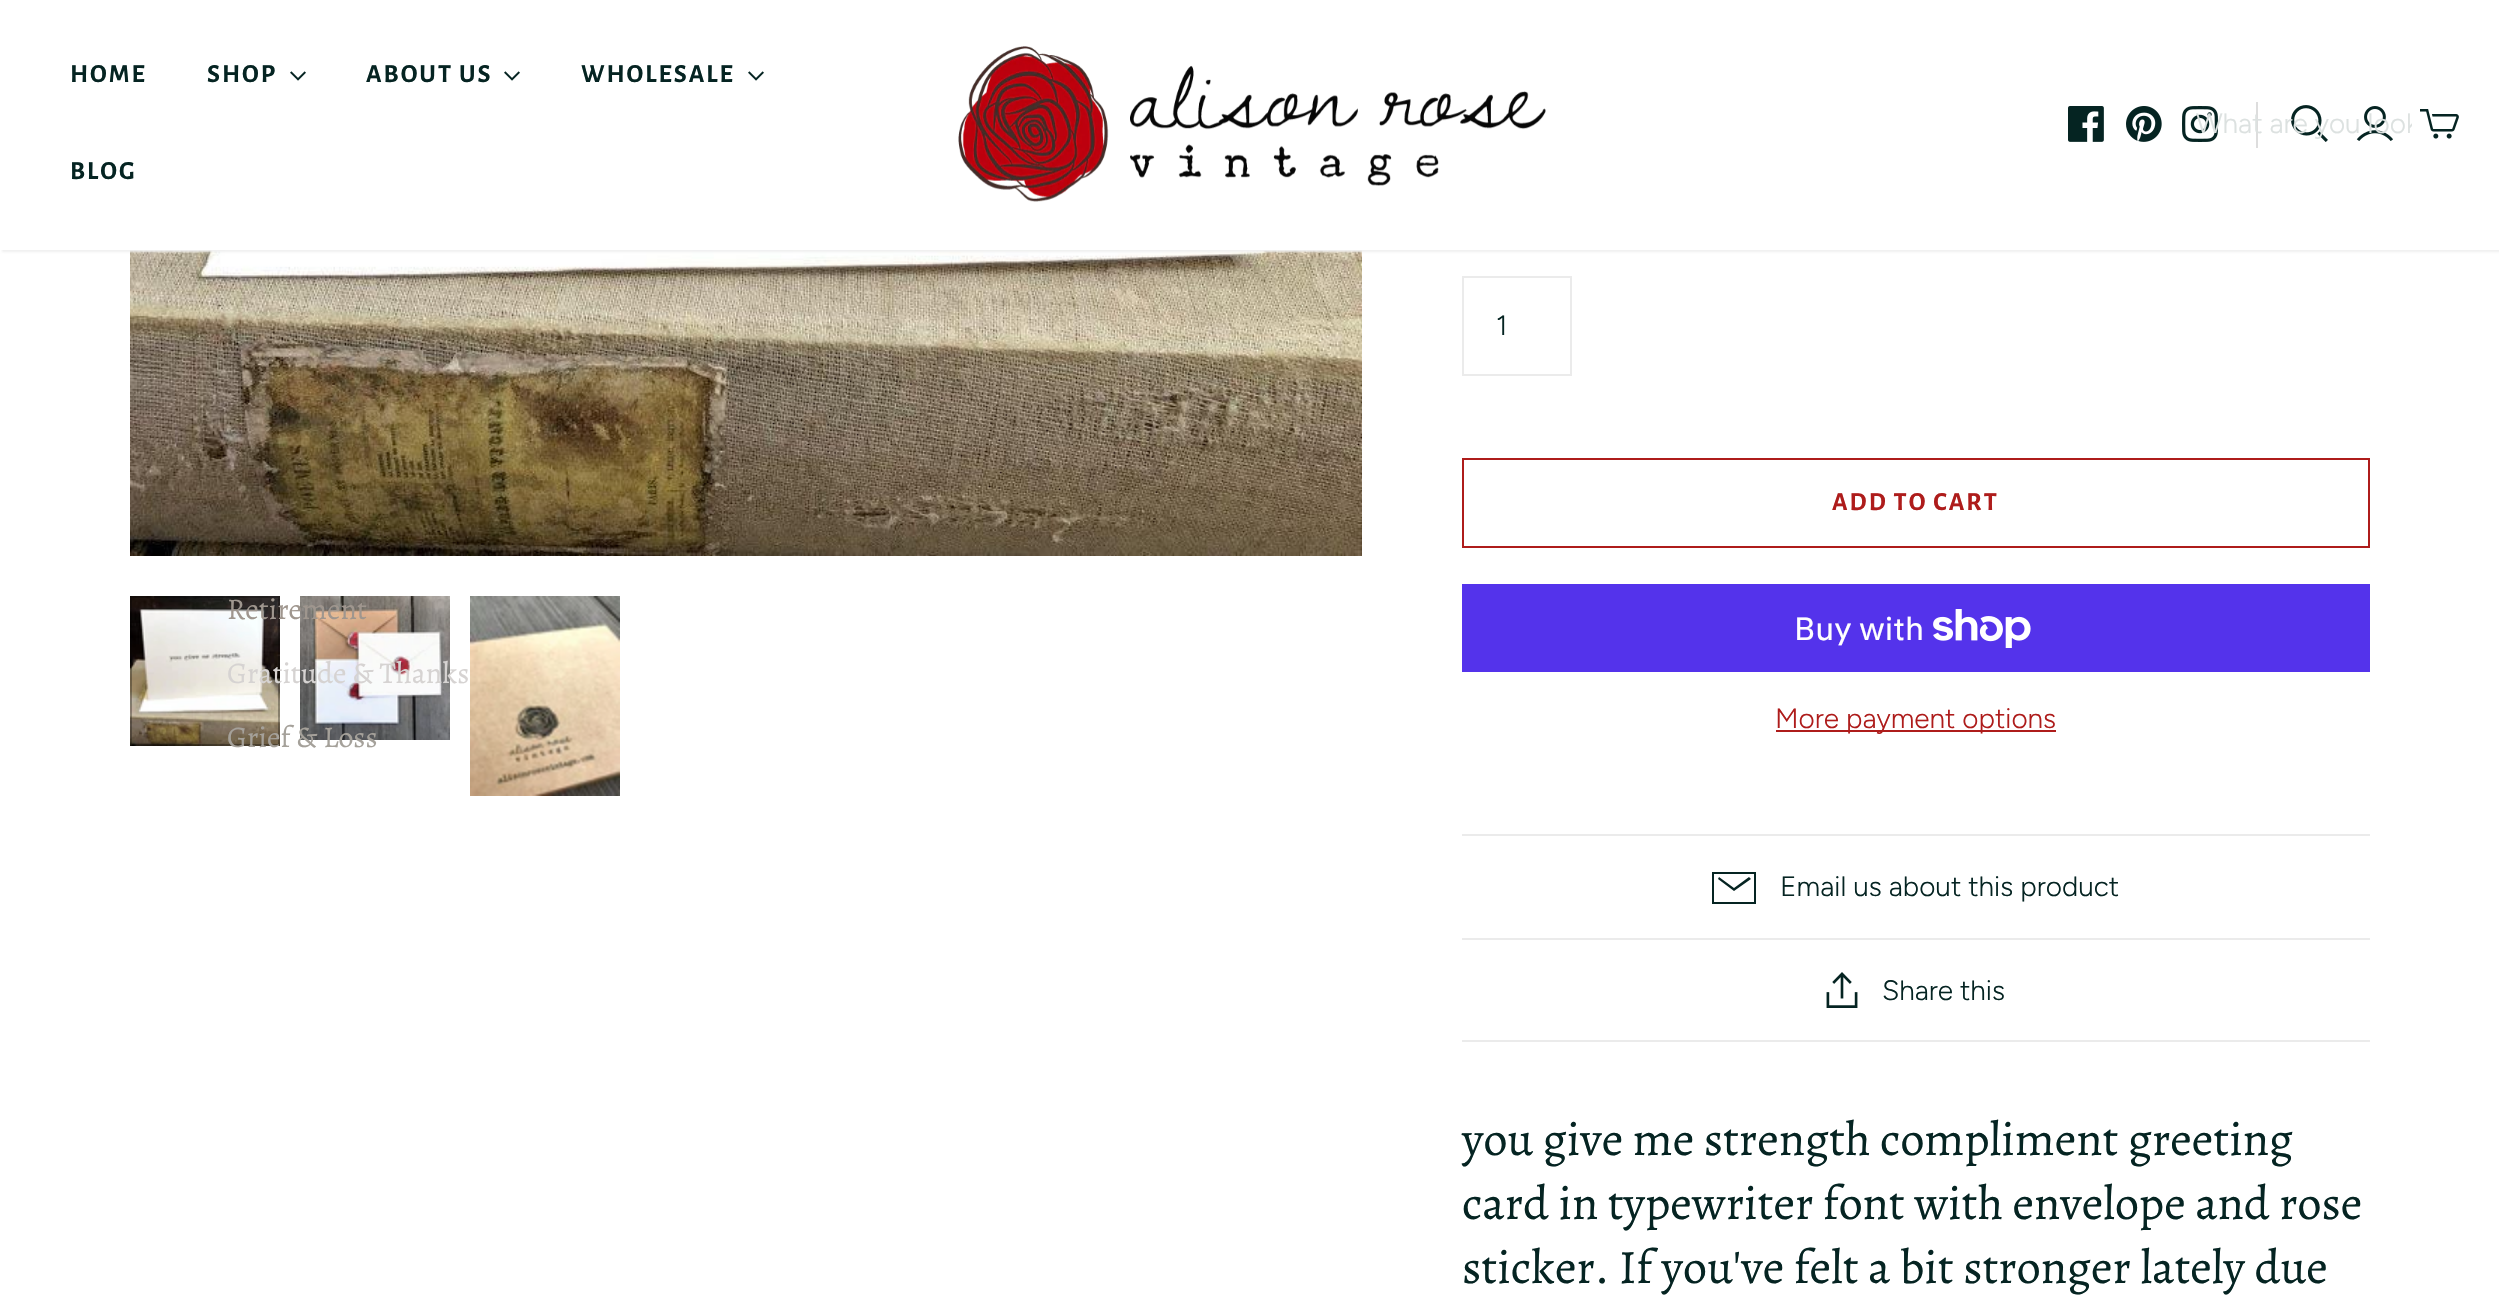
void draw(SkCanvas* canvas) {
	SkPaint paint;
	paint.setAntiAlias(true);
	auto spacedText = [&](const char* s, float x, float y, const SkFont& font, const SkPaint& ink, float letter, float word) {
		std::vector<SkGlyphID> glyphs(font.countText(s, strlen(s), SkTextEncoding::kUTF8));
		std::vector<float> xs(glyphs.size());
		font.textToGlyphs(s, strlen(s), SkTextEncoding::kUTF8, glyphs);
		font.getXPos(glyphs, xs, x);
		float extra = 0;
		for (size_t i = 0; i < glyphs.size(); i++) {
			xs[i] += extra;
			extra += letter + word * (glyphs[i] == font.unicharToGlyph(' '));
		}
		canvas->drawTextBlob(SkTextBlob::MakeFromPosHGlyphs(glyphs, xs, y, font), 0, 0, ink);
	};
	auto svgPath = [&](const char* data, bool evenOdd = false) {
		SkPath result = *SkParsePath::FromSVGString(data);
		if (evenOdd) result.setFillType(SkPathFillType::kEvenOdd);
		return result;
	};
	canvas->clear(0xffffffff);
	canvas->drawImageRect(SkImages::DeferredFromEncodedData(SkData::MakeFromFileName("img9.png")), SkRect::MakeXYWH(130, 250, 1232, 306), SkSamplingOptions());
	canvas->save();
	canvas->clipRect(SkRect::MakeXYWH(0, 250, 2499, 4));
	paint.setColor(0xfff0f0f0);
	paint.setMaskFilter(SkMaskFilter::MakeBlur(kNormal_SkBlurStyle, 1));
	canvas->drawRect(SkRect::MakeXYWH(2, 2, 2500, 250), paint);
	paint.setMaskFilter(nullptr);
	canvas->restore();
	SkFont f1(fontMgr->matchFamilyStyle("Alegreya Sans", SkFontStyle::Bold()), 26);
	f1.setSubpixel(true);
	paint.setColor(0xff052422);
	spacedText("HOME", 70, 82, f1, paint, 2, 0);
	spacedText("SHOP", 207, 82, f1, paint, 2, 0);
	canvas->drawImageRect(SkImages::DeferredFromEncodedData(SkData::MakeFromFileName("img1.png")), SkRect::MakeXYWH(290, 71, 16, 10), SkSamplingOptions());
	canvas->drawImageRect(SkImages::DeferredFromEncodedData(SkData::MakeFromFileName("img10.png")), SkRect::MakeXYWH(130, 596, 150, 150), SkSamplingOptions());
	paint.setStroke(true);
	paint.setStrokeWidth(2);
	paint.setColor(0x4d000000);
	canvas->drawRect(SkRect::MakeXYWH(131, 597, 148, 148), paint);
	canvas->drawImageRect(SkImages::DeferredFromEncodedData(SkData::MakeFromFileName("img11.png")), SkRect::MakeXYWH(300, 596, 150, 144), SkSamplingOptions());
	SkFont f2(fontMgr->matchFamilyStyle("Alegreya", SkFontStyle::Normal()), 30);
	f2.setSubpixel(true);
	paint.setStroke(false);
	paint.setColor(0xff9f968e);
	canvas->drawString("Retirement", 227, 619, f2, paint);
	paint.setColor(0xffd6d3d2);
	canvas->drawString("Gratitude & Thanks", 227, 683, f2, paint);
	paint.setColor(0xffa5a19a);
	canvas->drawString("Grief & Loss", 227, 747, f2, paint);
	paint.setColor(0xff052422);
	spacedText("ABOUT US", 366, 82, f1, paint, 2, 0);
	canvas->drawImageRect(SkImages::DeferredFromEncodedData(SkData::MakeFromFileName("img1.png")), SkRect::MakeXYWH(504, 71, 16, 10), SkSamplingOptions());
	spacedText("WHOLESALE", 581, 82, f1, paint, 2, 0);
	canvas->drawImageRect(SkImages::DeferredFromEncodedData(SkData::MakeFromFileName("img1.png")), SkRect::MakeXYWH(748, 71, 16, 10), SkSamplingOptions());
	spacedText("BLOG", 70, 179, f1, paint, 2, 0);
	canvas->drawImageRect(SkImages::DeferredFromEncodedData(SkData::MakeFromFileName("img2.png")), SkRect::MakeXYWH(958, 46, 588, 156), SkSamplingOptions());
	canvas->drawImageRect(SkImages::DeferredFromEncodedData(SkData::MakeFromFileName("img3.png")), SkRect::MakeXYWH(2068, 106, 36, 36), SkSamplingOptions());
	canvas->drawImageRect(SkImages::DeferredFromEncodedData(SkData::MakeFromFileName("img4.png")), SkRect::MakeXYWH(2126, 106, 36, 36), SkSamplingOptions());
	canvas->drawImageRect(SkImages::DeferredFromEncodedData(SkData::MakeFromFileName("img5.png")), SkRect::MakeXYWH(2182, 106, 36, 36), SkSamplingOptions());
	paint.setColor(0xffdddddd);
	canvas->drawRect(SkRect::MakeXYWH(2256, 102, 2, 46), paint);
	canvas->drawImageRect(SkImages::DeferredFromEncodedData(SkData::MakeFromFileName("img6.png")), SkRect::MakeXYWH(2356, 106, 37, 35), SkSamplingOptions());
	canvas->drawImageRect(SkImages::DeferredFromEncodedData(SkData::MakeFromFileName("img7.png")), SkRect::MakeXYWH(2420, 109, 39, 30), SkSamplingOptions());
	canvas->drawImageRect(SkImages::DeferredFromEncodedData(SkData::MakeFromFileName("img8.png")), SkRect::MakeXYWH(2291, 105, 37, 37), SkSamplingOptions());
	canvas->save();
	canvas->clipRect(SkRect::MakeXYWH(2196, 106, 216, 34));
	SkFont f3(fontMgr->matchFamilyStyle("Figtree", SkFontStyle(300, SkFontStyle::kNormal_Width, SkFontStyle::kUpright_Slant)), 28);
	f3.setSubpixel(true);
	paint.setColor(0xffdce1e0);
	canvas->drawString("What are you look", 2196, 133, f3, paint);
	canvas->restore();
	canvas->drawImageRect(SkImages::DeferredFromEncodedData(SkData::MakeFromFileName("img12.png")), SkRect::MakeXYWH(470, 596, 150, 200), SkSamplingOptions());
	paint.setStroke(true);
	paint.setColor(0xffebebeb);
	canvas->drawRect(SkRect::MakeXYWH(1463, 277, 108, 98), paint);
	paint.setStroke(false);
	paint.setColor(0xff052422);
	canvas->drawString("1", 1496, 335, f3, paint);
	paint.setStroke(true);
	paint.setColor(0xffae1c1b);
	canvas->drawRect(SkRect::MakeXYWH(1463, 459, 906, 88), paint);
	paint.setStroke(false);
	spacedText("ADD TO CART", 1832, 510, f1, paint, 2, 0);
	paint.setColor(0xff5433eb);
	canvas->drawRect(SkRect::MakeXYWH(1462, 584, 908, 88), paint);
	SkFont f4(fontMgr->matchFamilyStyle("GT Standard", SkFontStyle::Normal()), 32);
	f4.setSubpixel(true);
	paint.setColor(0xffffffff);
	canvas->drawString("Buy with", 1794, 640, f4, paint);
	canvas->drawImageRect(SkImages::DeferredFromEncodedData(SkData::MakeFromFileName("img13.png")), SkRect::MakeXYWH(1933, 609, 98, 39), SkSamplingOptions());
	paint.setColor(0xffae1c1b);
	canvas->drawRect(SkRect::MakeXYWH(1776, 730, 280, 2), paint);
	canvas->drawString("More payment options", 1775, 728, f3, paint);
	paint.setColor(0xffebebeb);
	canvas->drawRect(SkRect::MakeXYWH(1462, 834, 908, 2), paint);
	canvas->drawRect(SkRect::MakeXYWH(1462, 1040, 908, 2), paint);
	paint.setColor(0xff052422);
	canvas->drawPath(svgPath("M1714 874H1754V902H1714ZM1712 872H1756V904H1712ZM1718 879L1734 891L1751 879L1749 877L1734 888L1719 877Z", true), paint);
	canvas->drawString("Email us about this product", 1780, 896, f3, paint);
	paint.setColor(0xffebebeb);
	canvas->drawRect(SkRect::MakeXYWH(1462, 938, 908, 2), paint);
	canvas->drawImageRect(SkImages::DeferredFromEncodedData(SkData::MakeFromFileName("img14.png")), SkRect::MakeXYWH(1826, 972, 32, 36), SkSamplingOptions());
	paint.setColor(0xff052422);
	canvas->drawString("Share this", 1882, 1000, f3, paint);
	SkFont f5(fontMgr->matchFamilyStyle("Alegreya", SkFontStyle::Normal()), 48);
	f5.setSubpixel(true);
	canvas->drawString("you give me strength compliment greeting", 1462, 1155, f5, paint);
	canvas->drawString("card in typewriter font with envelope and rose", 1462, 1219, f5, paint);
	canvas->drawString("sticker. If you've felt a bit stronger lately due", 1462, 1283, f5, paint);
}
